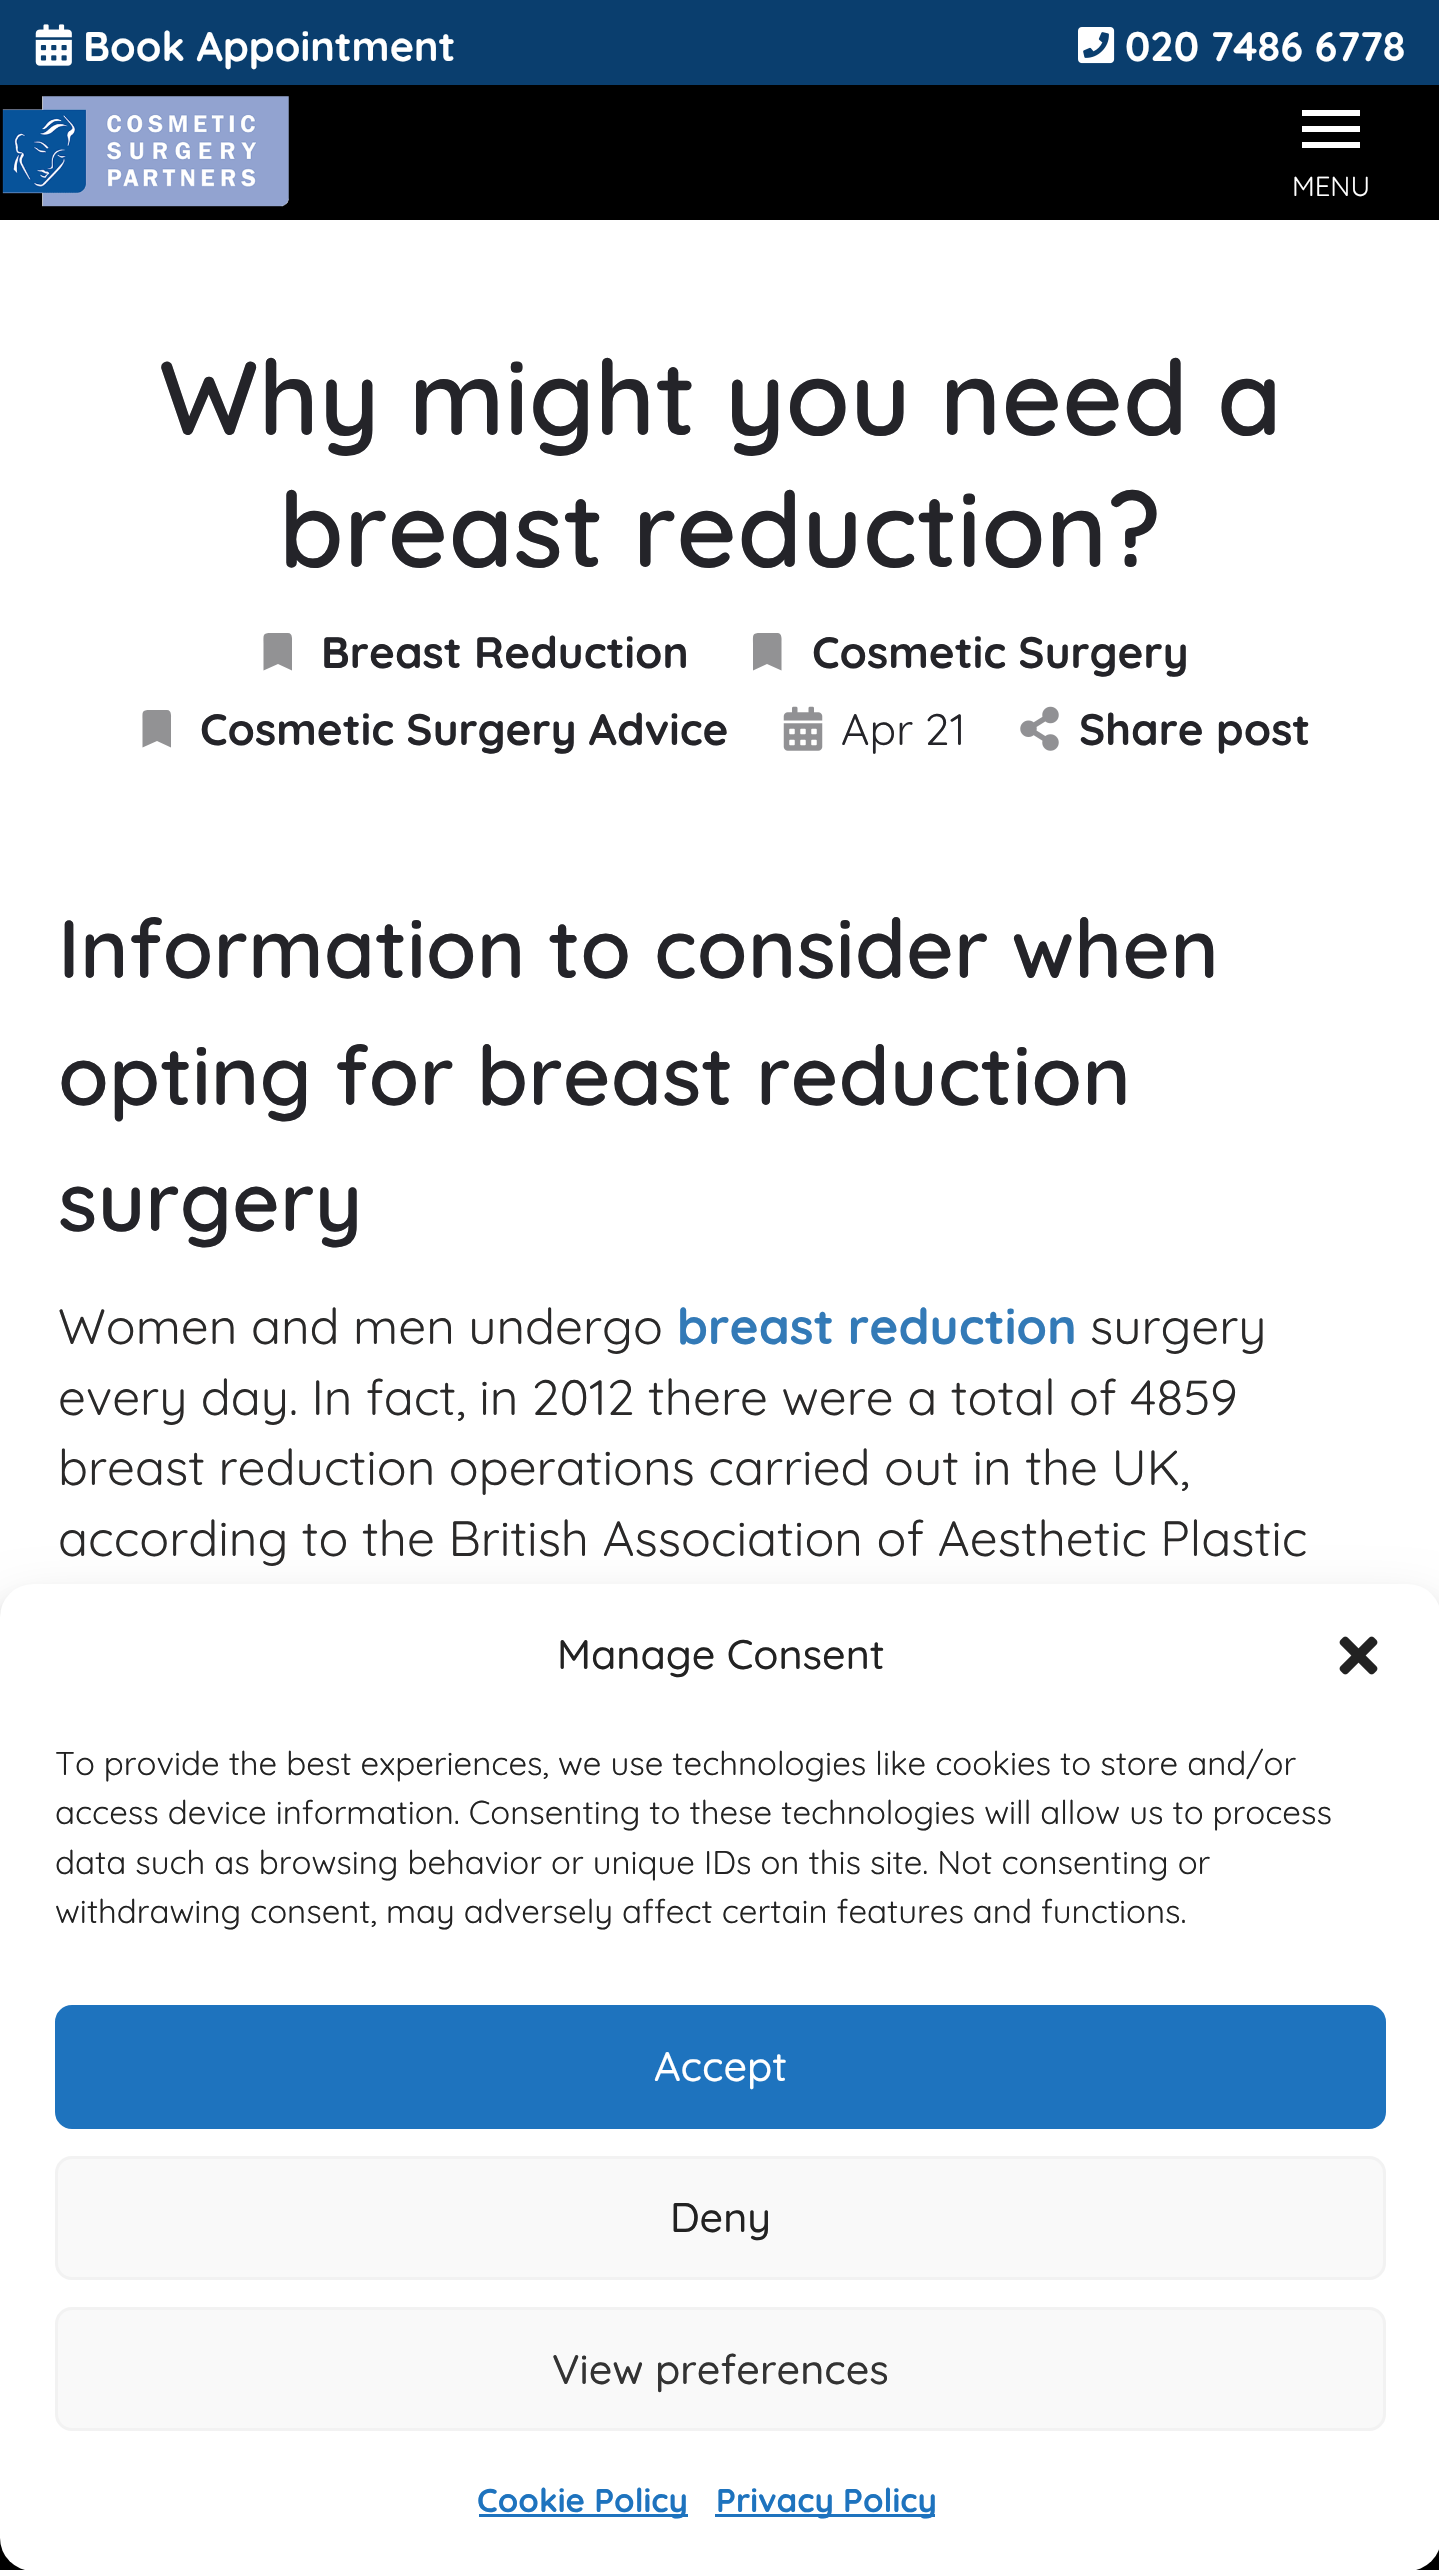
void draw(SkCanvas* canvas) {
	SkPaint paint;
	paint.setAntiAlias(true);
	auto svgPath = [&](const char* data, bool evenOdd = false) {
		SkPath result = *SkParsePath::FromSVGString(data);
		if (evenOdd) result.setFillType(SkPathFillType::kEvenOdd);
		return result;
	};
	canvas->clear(0xffffffff);
	paint.setColor(0xff0a3e6e);
	canvas->drawRect(SkRect::MakeXYWH(0, 0, 1439, 85), paint);
	canvas->drawImageRect(SkImages::DeferredFromEncodedData(SkData::MakeFromFileName("img1.png")), SkRect::MakeXYWH(35, 24, 37, 42), SkSamplingOptions());
	SkFont f1(fontMgr->matchFamilyStyle("Quicksand", SkFontStyle::Bold()), 41.25);
	f1.setSubpixel(true);
	paint.setColor(0xffffffff);
	canvas->drawString("Book Appointment", 83, 61, f1, paint);
	canvas->drawImageRect(SkImages::DeferredFromEncodedData(SkData::MakeFromFileName("img2.png")), SkRect::MakeXYWH(1078, 27, 37, 37), SkSamplingOptions());
	canvas->drawString("020 7486 6778", 1125, 61, f1, paint);
	paint.setColor(0xff000000);
	canvas->drawRect(SkRect::MakeXYWH(0, 85, 1439, 135), paint);
	canvas->drawImageRect(SkImages::DeferredFromEncodedData(SkData::MakeFromFileName("img3.png")), SkRect::MakeXYWH(2, 96, 287, 111), SkSamplingOptions());
	paint.setColor(0xffffffff);
	canvas->drawPath(svgPath("M1302 110H1360V116H1302ZM1302 132V126H1360V132ZM1302 148V142H1360V148Z"), paint);
	SkFont f2(fontMgr->matchFamilyStyle("Quicksand", SkFontStyle::Normal()), 27.5);
	f2.setSubpixel(true);
	canvas->drawString("MENU", 1292, 196, f2, paint);
	SkFont f3(fontMgr->matchFamilyStyle("Quicksand", SkFontStyle(600, SkFontStyle::kNormal_Width, SkFontStyle::kUpright_Slant)), 104.5);
	f3.setSubpixel(true);
	paint.setColor(0xff242429);
	canvas->drawString("Why might you need a", 159, 435, f3, paint);
	canvas->drawString("breast reduction?", 279, 567, f3, paint);
	paint.setColor(0xff929294);
	canvas->drawPath(svgPath("M288 633C293 633 292 640 292 643V670.5L278 664L263.5 670.5V643C263.5 635 262.5 633 271 633Z"), paint);
	SkFont f4(fontMgr->matchFamilyStyle("Quicksand", SkFontStyle::Bold()), 44);
	f4.setSubpixel(true);
	paint.setColor(0xff242429);
	canvas->drawString("Breast Reduction", 321, 668, f4, paint);
	paint.setColor(0xff929294);
	canvas->drawPath(svgPath("M777.5 633C782.5 633 781.5 640 781.5 643V670.5L767 664L753 670.5V643C753 635 752 633 760.5 633Z"), paint);
	paint.setColor(0xff242429);
	canvas->drawString("Cosmetic Surgery", 812, 668, f4, paint);
	paint.setColor(0xff929294);
	canvas->drawPath(svgPath("M167 710C172 710 171 717 171 720V747.5L157 741L142.5 747.5V720C142.5 712 141.5 710 150 710Z"), paint);
	paint.setColor(0xff242429);
	canvas->drawString("Cosmetic Surgery Advice", 200, 745, f4, paint);
	canvas->drawImageRect(SkImages::DeferredFromEncodedData(SkData::MakeFromFileName("img4.png")), SkRect::MakeXYWH(783, 706, 40, 45), SkSamplingOptions());
	SkFont f5(fontMgr->matchFamilyStyle("Quicksand", SkFontStyle::Normal()), 44);
	f5.setSubpixel(true);
	canvas->drawString("Apr 21", 841, 745, f5, paint);
	canvas->drawImageRect(SkImages::DeferredFromEncodedData(SkData::MakeFromFileName("img5.png")), SkRect::MakeXYWH(1020, 706, 39, 45), SkSamplingOptions());
	canvas->drawString("Share post", 1079, 745, f4, paint);
	SkFont f6(fontMgr->matchFamilyStyle("Quicksand", SkFontStyle(600, SkFontStyle::kNormal_Width, SkFontStyle::kUpright_Slant)), 82.5);
	f6.setSubpixel(true);
	canvas->drawString("Information to consider when", 58, 978, f6, paint);
	canvas->drawString("opting for breast reduction", 58, 1105, f6, paint);
	canvas->drawString("surgery", 58, 1231, f6, paint);
	SkFont f7(fontMgr->matchFamilyStyle("Quicksand", SkFontStyle::Normal()), 49.5);
	f7.setSubpixel(true);
	paint.setColor(0xff2a2929);
	canvas->drawString("Women and men undergo", 58, 1344, f7, paint);
	SkFont f8(fontMgr->matchFamilyStyle("Quicksand", SkFontStyle::Bold()), 49.5);
	f8.setSubpixel(true);
	paint.setColor(0xff337ab7);
	canvas->drawString("breast reduction", 677, 1344, f8, paint);
	paint.setColor(0xff2a2929);
	canvas->drawString("surgery", 1090, 1344, f7, paint);
	canvas->drawString("every day. In fact, in 2012 there were a total of 4859", 58, 1415, f7, paint);
	canvas->drawString("breast reduction operations carried out in the UK,", 58, 1485, f7, paint);
	canvas->drawString("according to the British Association of Aesthetic Plastic", 58, 1556, f7, paint);
	paint.setColor(0xff000000);
	canvas->drawRect(SkRect::MakeXYWH(0, 2538, 1439, 32), paint);
	paint.setColor(0x3b000000);
	paint.setMaskFilter(SkMaskFilter::MakeBlur(kNormal_SkBlurStyle, 8));
	canvas->drawRoundRect(SkRect::MakeXYWH(0, 1601, 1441, 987), 33, 33, paint);
	paint.setMaskFilter(nullptr);
	paint.setColor(0x30000000);
	paint.setMaskFilter(SkMaskFilter::MakeBlur(kNormal_SkBlurStyle, 27.5));
	canvas->drawRoundRect(SkRect::MakeXYWH(0, 1612, 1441, 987), 33, 33, paint);
	paint.setMaskFilter(nullptr);
	paint.setColor(0xffffffff);
	canvas->drawRoundRect(SkRect::MakeXYWH(0, 1584, 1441, 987), 33, 33, paint);
	SkFont f9(fontMgr->matchFamilyStyle("Quicksand", SkFontStyle(500, SkFontStyle::kNormal_Width, SkFontStyle::kUpright_Slant)), 41.25);
	f9.setSubpixel(true);
	paint.setColor(0xff222222);
	canvas->drawString("Manage Consent", 557, 1669, f9, paint);
	canvas->drawImageRect(SkImages::DeferredFromEncodedData(SkData::MakeFromFileName("img6.png")), SkRect::MakeXYWH(1339, 1636, 39, 39), SkSamplingOptions());
	SkFont f10(fontMgr->matchFamilyStyle("Quicksand", SkFontStyle::Normal()), 33);
	f10.setSubpixel(true);
	canvas->drawString("To provide the best experiences, we use technologies like cookies to store and/or", 55, 1775, f10, paint);
	canvas->drawString("access device information. Consenting to these technologies will allow us to process", 55, 1824, f10, paint);
	canvas->drawString("data such as browsing behavior or unique IDs on this site. Not consenting or", 55, 1874, f10, paint);
	canvas->drawString("withdrawing consent, may adversely affect certain features and functions.", 55, 1923, f10, paint);
	paint.setColor(0xff1e73be);
	canvas->drawRoundRect(SkRect::MakeXYWH(56.5, 2006.5, 1328, 121), 15.5, 15.5, paint);
	paint.setStroke(true);
	paint.setStrokeWidth(3);
	canvas->drawRoundRect(SkRect::MakeXYWH(56.5, 2006.5, 1328, 121), 15.5, 15.5, paint);
	paint.setStroke(false);
	paint.setColor(0xffffffff);
	canvas->drawString("Accept", 654, 2081, f9, paint);
	paint.setColor(0xfff9f9f9);
	canvas->drawRoundRect(SkRect::MakeXYWH(56.5, 2157.5, 1328, 121), 15.5, 15.5, paint);
	paint.setStroke(true);
	paint.setColor(0xfff2f2f2);
	canvas->drawRoundRect(SkRect::MakeXYWH(56.5, 2157.5, 1328, 121), 15.5, 15.5, paint);
	paint.setStroke(false);
	paint.setColor(0xff222222);
	canvas->drawString("Deny", 670, 2232, f9, paint);
	paint.setColor(0xfff9f9f9);
	canvas->drawRoundRect(SkRect::MakeXYWH(56.5, 2308.5, 1328, 121), 15.5, 15.5, paint);
	paint.setStroke(true);
	paint.setColor(0xfff2f2f2);
	canvas->drawRoundRect(SkRect::MakeXYWH(56.5, 2308.5, 1328, 121), 15.5, 15.5, paint);
	paint.setStroke(false);
	paint.setColor(0xff333333);
	canvas->drawString("View preferences", 552, 2384, f9, paint);
	paint.setColor(0xff1e73be);
	canvas->drawRect(SkRect::MakeXYWH(479, 2514, 209, 3), paint);
	SkFont f11(fontMgr->matchFamilyStyle("Quicksand", SkFontStyle::Bold()), 33);
	f11.setSubpixel(true);
	canvas->drawString("Cookie Policy", 477, 2512, f11, paint);
	canvas->drawRect(SkRect::MakeXYWH(715, 2514, 220, 3), paint);
	canvas->drawString("Privacy Policy", 716, 2512, f11, paint);
}
